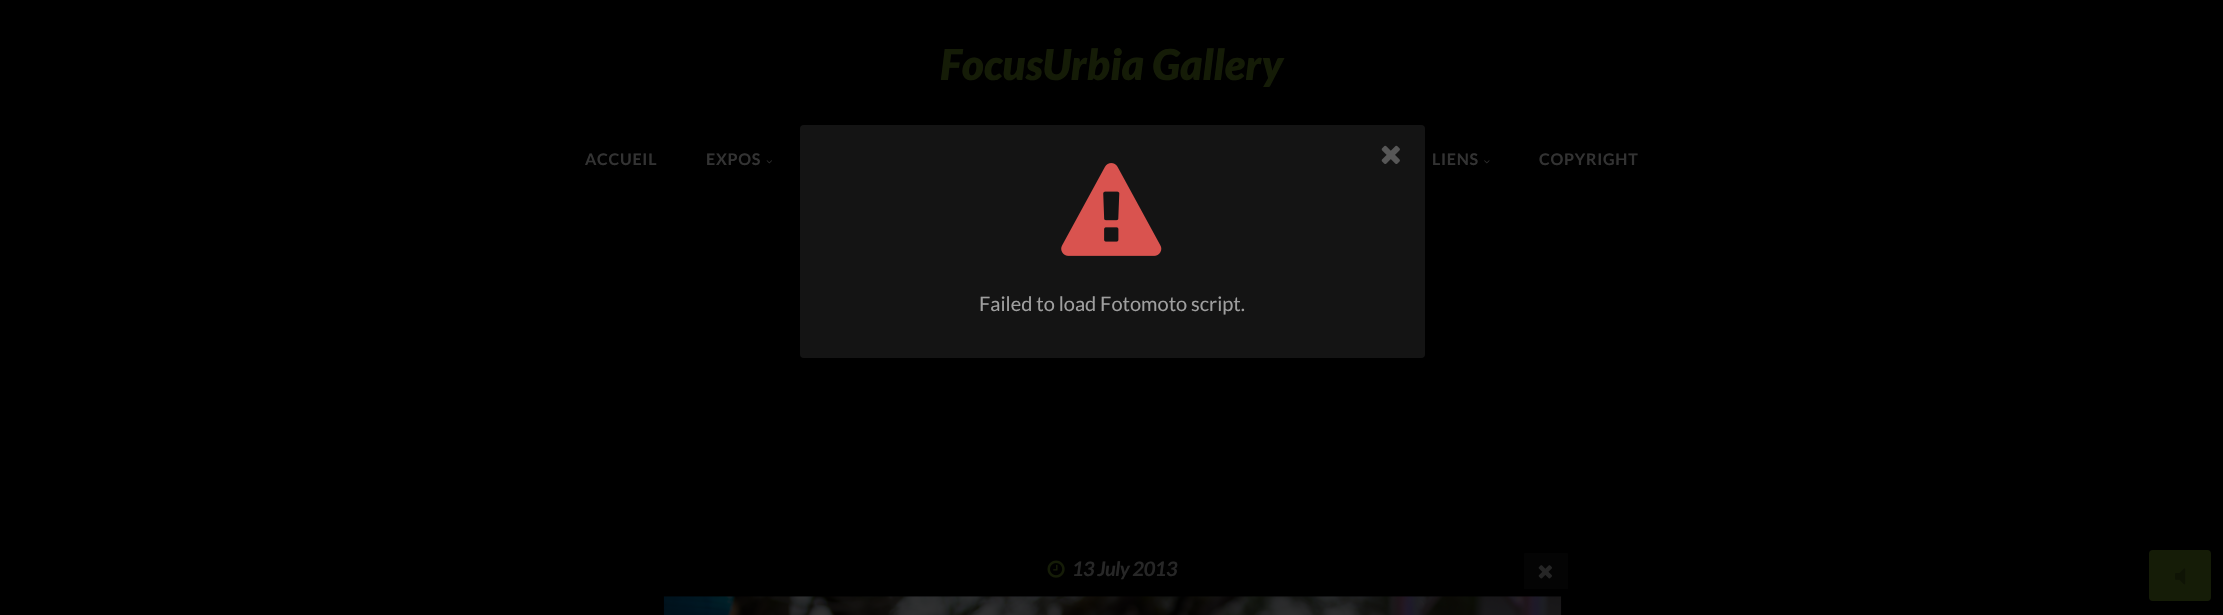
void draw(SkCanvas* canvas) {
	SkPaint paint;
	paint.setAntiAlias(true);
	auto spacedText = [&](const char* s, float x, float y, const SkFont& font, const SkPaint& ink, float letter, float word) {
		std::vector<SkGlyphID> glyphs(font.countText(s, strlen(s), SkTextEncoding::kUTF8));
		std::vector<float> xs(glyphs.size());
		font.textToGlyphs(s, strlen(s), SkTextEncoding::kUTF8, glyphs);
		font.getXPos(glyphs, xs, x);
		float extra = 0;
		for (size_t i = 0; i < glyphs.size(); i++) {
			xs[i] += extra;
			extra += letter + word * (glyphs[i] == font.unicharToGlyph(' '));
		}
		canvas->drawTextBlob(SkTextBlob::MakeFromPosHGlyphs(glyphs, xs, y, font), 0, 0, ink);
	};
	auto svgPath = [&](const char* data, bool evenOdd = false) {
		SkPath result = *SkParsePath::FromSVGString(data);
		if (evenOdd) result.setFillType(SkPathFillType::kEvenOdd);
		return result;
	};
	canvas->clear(0xff000000);
	SkFont f1(fontMgr->matchFamilyStyle("Lato", SkFontStyle(900, SkFontStyle::kNormal_Width, SkFontStyle::kItalic_Slant)), 42.5);
	f1.setSubpixel(true);
	paint.setColor(0xff151c07);
	canvas->drawString("FocusUrbia Gallery", 940, 80, f1, paint);
	SkFont f2(fontMgr->matchFamilyStyle("Lato", SkFontStyle::Bold()), 16);
	f2.setSubpixel(true);
	paint.setColor(0xff333333);
	spacedText("ACCUEIL", 585, 165, f2, paint, 0.75, 0);
	spacedText("EXPOS", 706, 165, f2, paint, 0.75, 0);
	canvas->drawImageRect(SkImages::DeferredFromEncodedData(SkData::MakeFromFileName("img1.png")), SkRect::MakeXYWH(766, 160, 6, 4), SkSamplingOptions());
	spacedText("LIENS", 1432, 165, f2, paint, 0.75, 0);
	canvas->drawImageRect(SkImages::DeferredFromEncodedData(SkData::MakeFromFileName("img2.png")), SkRect::MakeXYWH(1484, 160, 6, 4), SkSamplingOptions());
	spacedText("COPYRIGHT", 1539, 165, f2, paint, 0.75, 0);
	canvas->drawImageRect(SkImages::DeferredFromEncodedData(SkData::MakeFromFileName("img3.png")), SkRect::MakeXYWH(1047, 560, 18, 18), SkSamplingOptions());
	SkFont f3(fontMgr->matchFamilyStyle("Lato", SkFontStyle::BoldItalic()), 20);
	f3.setSubpixel(true);
	paint.setColor(0xff272727);
	spacedText("13 July 2013", 1072, 576, f3, paint, -0.5, 0);
	canvas->save();
	canvas->clipRect(SkRect::MakeXYWH(400, 553, 1425, 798));
	paint.setColor(0xff040404);
	canvas->drawPath(svgPath("M1528 551H1564C1566 551 1568 553 1568 555V589H1524V555C1524 553 1526 551 1528 551Z"), paint);
	canvas->restore();
	canvas->drawImageRect(SkImages::DeferredFromEncodedData(SkData::MakeFromFileName("img4.png")), SkRect::MakeXYWH(1538, 565, 14, 14), SkSamplingOptions());
	canvas->drawImageRect(SkImages::DeferredFromEncodedData(SkData::MakeFromFileName("img5.png")), SkRect::MakeXYWH(663, 596, 899, 19), SkSamplingOptions());
	paint.setColor(0xff141414);
	canvas->drawRoundRect(SkRect::MakeXYWH(800, 125, 625, 233), 4, 4, paint);
	canvas->drawImageRect(SkImages::DeferredFromEncodedData(SkData::MakeFromFileName("img6.png")), SkRect::MakeXYWH(1381, 145, 19, 19), SkSamplingOptions());
	canvas->drawImageRect(SkImages::DeferredFromEncodedData(SkData::MakeFromFileName("img7.png")), SkRect::MakeXYWH(1061, 163, 101, 93), SkSamplingOptions());
	SkFont f4(fontMgr->matchFamilyStyle("Lato", SkFontStyle::Normal()), 20);
	f4.setSubpixel(true);
	paint.setColor(0xff9f9f9f);
	canvas->drawString("Failed to load Fotomoto script.", 979, 311, f4, paint);
	paint.setColor(0xff151c07);
	canvas->drawRoundRect(SkRect::MakeXYWH(2149, 550, 62, 51), 4, 4, paint);
	canvas->drawImageRect(SkImages::DeferredFromEncodedData(SkData::MakeFromFileName("img8.png")), SkRect::MakeXYWH(2175, 568, 11, 17), SkSamplingOptions());
}
